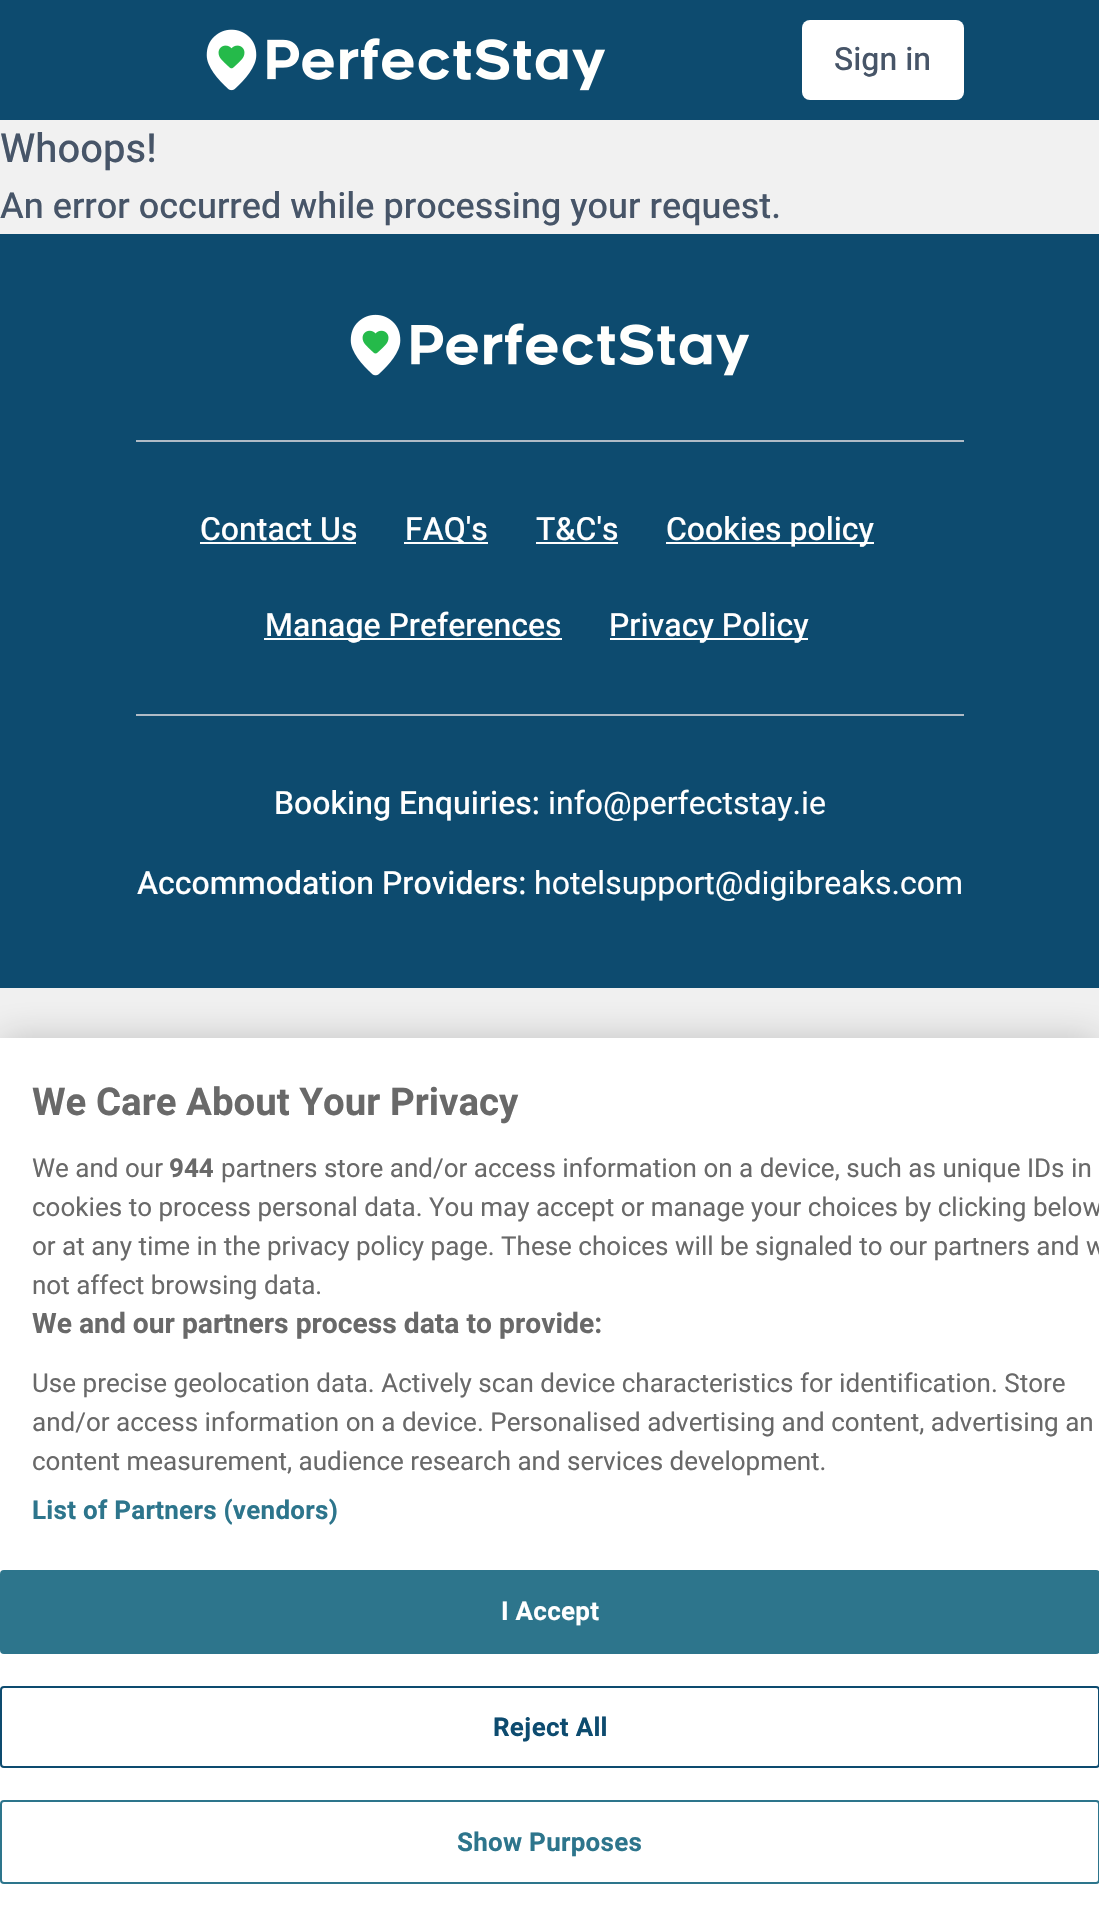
void draw(SkCanvas* canvas) {
	SkPaint paint;
	paint.setAntiAlias(true);
	auto spacedText = [&](const char* s, float x, float y, const SkFont& font, const SkPaint& ink, float letter, float word) {
		std::vector<SkGlyphID> glyphs(font.countText(s, strlen(s), SkTextEncoding::kUTF8));
		std::vector<float> xs(glyphs.size());
		font.textToGlyphs(s, strlen(s), SkTextEncoding::kUTF8, glyphs);
		font.getXPos(glyphs, xs, x);
		float extra = 0;
		for (size_t i = 0; i < glyphs.size(); i++) {
			xs[i] += extra;
			extra += letter + word * (glyphs[i] == font.unicharToGlyph(' '));
		}
		canvas->drawTextBlob(SkTextBlob::MakeFromPosHGlyphs(glyphs, xs, y, font), 0, 0, ink);
	};
	canvas->clear(0xfff1f1f1);
	paint.setColor(0xff0d4b6f);
	canvas->drawRect(SkRect::MakeXYWH(0, 0, 1099, 120), paint);
	canvas->drawImageRect(SkImages::DeferredFromEncodedData(SkData::MakeFromFileName("img1.png")), SkRect::MakeXYWH(206, 29, 400, 62), SkSamplingOptions());
	paint.setColor(0xffffffff);
	canvas->drawRoundRect(SkRect::MakeXYWH(802, 20, 162, 80), 8, 8, paint);
	SkFont f1(fontMgr->matchFamilyStyle("Heebo", SkFontStyle(500, SkFontStyle::kNormal_Width, SkFontStyle::kUpright_Slant)), 32);
	f1.setSubpixel(true);
	paint.setColor(0xff475568);
	canvas->drawString("Sign in", 834, 70, f1, paint);
	SkFont f2(fontMgr->matchFamilyStyle("Heebo", SkFontStyle(500, SkFontStyle::kNormal_Width, SkFontStyle::kUpright_Slant)), 40);
	f2.setSubpixel(true);
	canvas->drawString("Whoops!", 0, 162, f2, paint);
	SkFont f3(fontMgr->matchFamilyStyle("Heebo", SkFontStyle(500, SkFontStyle::kNormal_Width, SkFontStyle::kUpright_Slant)), 36);
	f3.setSubpixel(true);
	canvas->drawString("An error occurred while processing your request.", 0, 218, f3, paint);
	paint.setColor(0xff0d4b6f);
	canvas->drawRect(SkRect::MakeXYWH(0, 234, 1099, 754), paint);
	canvas->drawImageRect(SkImages::DeferredFromEncodedData(SkData::MakeFromFileName("img2.png")), SkRect::MakeXYWH(350, 314, 399, 62), SkSamplingOptions());
	paint.setColor(0xffb0bbc6);
	canvas->drawRect(SkRect::MakeXYWH(136, 440, 828, 2), paint);
	paint.setColor(0xffffffff);
	canvas->drawString("Contact Us", 200, 540, f1, paint);
	canvas->drawRect(SkRect::MakeXYWH(200, 542, 156, 2), paint);
	canvas->drawRect(SkRect::MakeXYWH(404, 542, 84, 2), paint);
	canvas->drawString("FAQ's", 405, 540, f1, paint);
	canvas->drawString("T&C's", 536, 540, f1, paint);
	canvas->drawRect(SkRect::MakeXYWH(536, 542, 82, 2), paint);
	canvas->drawRect(SkRect::MakeXYWH(666, 542, 208, 2), paint);
	canvas->drawString("Cookies policy", 666, 540, f1, paint);
	canvas->drawRect(SkRect::MakeXYWH(264, 638, 298, 2), paint);
	canvas->drawString("Manage Preferences", 265, 636, f1, paint);
	canvas->drawRect(SkRect::MakeXYWH(610, 638, 198, 2), paint);
	canvas->drawString("Privacy Policy", 609, 636, f1, paint);
	paint.setColor(0xffb0bbc6);
	canvas->drawRect(SkRect::MakeXYWH(136, 714, 828, 2), paint);
	paint.setColor(0xffffffff);
	canvas->drawString("Booking Enquiries:", 274, 814, f1, paint);
	SkFont f4(fontMgr->matchFamilyStyle("Heebo", SkFontStyle::Normal()), 32);
	f4.setSubpixel(true);
	canvas->drawString("info@perfectstay.ie", 548, 814, f4, paint);
	canvas->drawString("Accommodation Providers:", 137, 894, f1, paint);
	canvas->drawString("hotelsupport@digibreaks.com", 534, 894, f4, paint);
	paint.setColor(0x33000000);
	paint.setMaskFilter(SkMaskFilter::MakeBlur(kNormal_SkBlurStyle, 18));
	canvas->drawRect(SkRect::MakeXYWH(0, 1038, 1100, 878), paint);
	paint.setMaskFilter(nullptr);
	paint.setColor(0xffffffff);
	canvas->drawRect(SkRect::MakeXYWH(0, 1038, 1099, 878), paint);
	SkFont f5(fontMgr->matchFamilyStyle("Heebo", SkFontStyle::Bold()), 38.4);
	f5.setSubpixel(true);
	paint.setColor(0xff696969);
	canvas->drawString("We Care About Your Privacy", 32, 1115, f5, paint);
	SkFont f6(fontMgr->matchFamilyStyle("Heebo", SkFontStyle::Normal()), 26);
	f6.setSubpixel(true);
	canvas->drawString("We and our", 32, 1177, f6, paint);
	SkFont f7(fontMgr->matchFamilyStyle("Heebo", SkFontStyle::Bold()), 26);
	f7.setSubpixel(true);
	canvas->drawString("944", 169, 1177, f7, paint);
	canvas->drawString("partners store and/or access information on a device, such as unique IDs in", 221, 1177, f6, paint);
	canvas->drawString("cookies to process personal data. You may accept or manage your choices by clicking below", 32, 1216, f6, paint);
	canvas->drawString("or at any time in the privacy policy page. These choices will be signaled to our partners and w", 32, 1255, f6, paint);
	canvas->drawString("not affect browsing data.", 32, 1294, f6, paint);
	SkFont f8(fontMgr->matchFamilyStyle("Heebo", SkFontStyle::Bold()), 28.2);
	f8.setSubpixel(true);
	canvas->drawString("We and our partners process data to provide:", 32, 1333, f8, paint);
	canvas->drawString("Use precise geolocation data. Actively scan device characteristics for identification. Store", 32, 1392, f6, paint);
	canvas->drawString("and/or access information on a device. Personalised advertising and content, advertising an", 32, 1431, f6, paint);
	canvas->drawString("content measurement, audience research and services development.", 32, 1470, f6, paint);
	paint.setColor(0xff2d758c);
	spacedText("List of Partners (vendors)", 32, 1519, f7, paint, 0.25, 0);
	canvas->drawRoundRect(SkRect::MakeXYWH(1, 1571, 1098, 82), 3, 3, paint);
	paint.setStroke(true);
	paint.setStrokeWidth(2);
	canvas->drawRoundRect(SkRect::MakeXYWH(1, 1571, 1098, 82), 3, 3, paint);
	paint.setStroke(false);
	paint.setColor(0xffffffff);
	spacedText("I Accept", 501, 1620, f7, paint, 0.25, 0);
	paint.setStroke(true);
	paint.setColor(0xff0d4b6f);
	canvas->drawRoundRect(SkRect::MakeXYWH(1, 1687, 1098, 80), 3, 3, paint);
	paint.setStroke(false);
	spacedText("Reject All", 493, 1736, f7, paint, 0.25, 0);
	paint.setStroke(true);
	paint.setColor(0xff2d758c);
	canvas->drawRoundRect(SkRect::MakeXYWH(1, 1801, 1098, 82), 3, 3, paint);
	paint.setStroke(false);
	spacedText("Show Purposes", 457, 1851, f7, paint, 0.25, 0);
}
